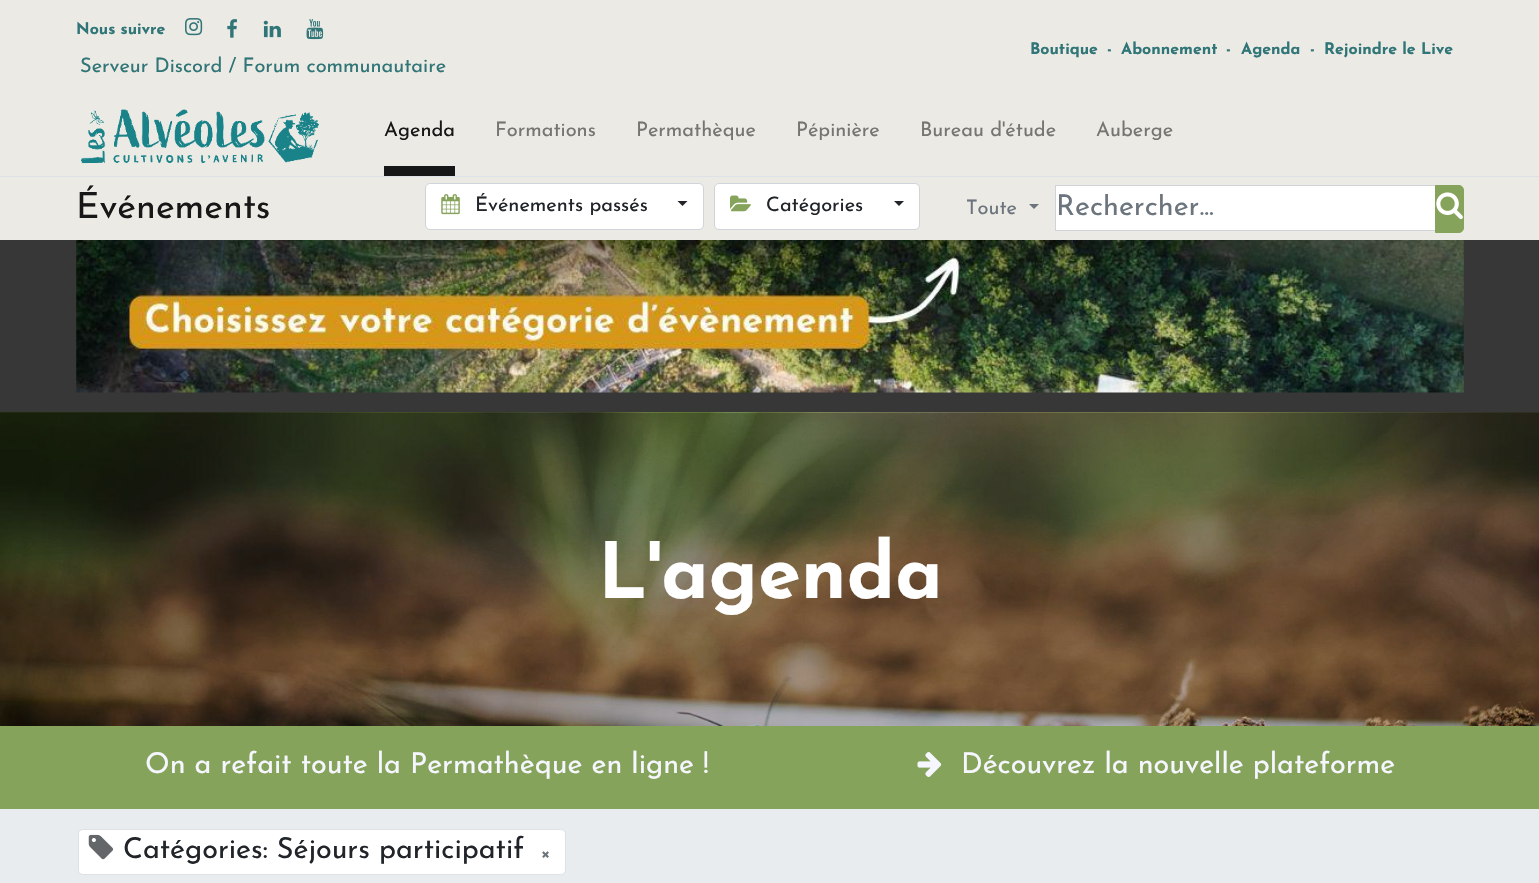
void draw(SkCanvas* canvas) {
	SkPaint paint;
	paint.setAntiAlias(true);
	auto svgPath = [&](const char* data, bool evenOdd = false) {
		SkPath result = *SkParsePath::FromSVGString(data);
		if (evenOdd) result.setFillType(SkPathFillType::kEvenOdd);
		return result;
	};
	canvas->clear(0xffeceae4);
	SkFont f1(fontMgr->matchFamilyStyle("Josefin Sans", SkFontStyle::Bold()), 16);
	f1.setSubpixel(true);
	paint.setColor(0xff307577);
	canvas->drawString("Nous suivre", 76, 34, f1, paint);
	canvas->drawImageRect(SkImages::DeferredFromEncodedData(SkData::MakeFromFileName("img1.png")), SkRect::MakeXYWH(185, 18, 18, 18), SkSamplingOptions());
	canvas->drawImageRect(SkImages::DeferredFromEncodedData(SkData::MakeFromFileName("img2.png")), SkRect::MakeXYWH(227, 19, 10, 19), SkSamplingOptions());
	canvas->drawImageRect(SkImages::DeferredFromEncodedData(SkData::MakeFromFileName("img3.png")), SkRect::MakeXYWH(263, 20, 18, 18), SkSamplingOptions());
	canvas->drawImageRect(SkImages::DeferredFromEncodedData(SkData::MakeFromFileName("img4.png")), SkRect::MakeXYWH(306, 19, 18, 21), SkSamplingOptions());
	SkFont f2(fontMgr->matchFamilyStyle("Josefin Sans", SkFontStyle::Normal()), 20);
	f2.setSubpixel(true);
	canvas->drawString("Serveur Discord / Forum communautaire", 80, 72, f2, paint);
	canvas->drawString("Boutique", 1030, 54, f1, paint);
	canvas->drawString("-", 1107, 54, f1, paint);
	canvas->drawString("Abonnement", 1121, 54, f1, paint);
	canvas->drawString("-", 1226, 54, f1, paint);
	canvas->drawString("Agenda", 1241, 54, f1, paint);
	canvas->drawString("-", 1310, 54, f1, paint);
	canvas->drawString("Rejoindre le Live", 1324, 54, f1, paint);
	canvas->drawImageRect(SkImages::DeferredFromEncodedData(SkData::MakeFromFileName("img5.png")), SkRect::MakeXYWH(81, 109, 238, 55), SkSamplingOptions());
	paint.setColor(0xff181717);
	canvas->drawRect(SkRect::MakeXYWH(384, 166, 71, 10), paint);
	canvas->drawString("Agenda", 384, 136, f2, paint);
	paint.setColor(0xff767572);
	canvas->drawString("Formations", 495, 136, f2, paint);
	canvas->drawString("Permathèque", 636, 136, f2, paint);
	canvas->drawString("Pépinière", 796, 136, f2, paint);
	canvas->drawString("Bureau d'étude", 920, 136, f2, paint);
	canvas->drawString("Auberge", 1096, 136, f2, paint);
	paint.setColor(0xffdee2e6);
	canvas->drawRect(SkRect::MakeXYWH(0, 176, 1539, 1), paint);
	SkFont f3(fontMgr->matchFamilyStyle("Josefin Sans", SkFontStyle::Normal()), 36);
	f3.setSubpixel(true);
	paint.setColor(0xff181717);
	canvas->drawString("Événements", 76, 218, f3, paint);
	paint.setColor(0xffffffff);
	canvas->drawRoundRect(SkRect::MakeXYWH(425.5, 183.5, 278, 46), 4.5, 4.5, paint);
	paint.setStroke(true);
	paint.setStrokeWidth(1);
	paint.setColor(0xffced4da);
	canvas->drawRoundRect(SkRect::MakeXYWH(425.5, 183.5, 278, 46), 4.5, 4.5, paint);
	canvas->drawImageRect(SkImages::DeferredFromEncodedData(SkData::MakeFromFileName("img6.png")), SkRect::MakeXYWH(441, 194, 19, 21), SkSamplingOptions());
	paint.setStroke(false);
	paint.setColor(0xff212529);
	canvas->drawString("Événements passés", 475, 211, f2, paint);
	canvas->drawPath(svgPath("M677.5 201H687.5L682.5 206Z"), paint);
	paint.setColor(0xffffffff);
	canvas->drawRoundRect(SkRect::MakeXYWH(714.5, 183.5, 205, 46), 4.5, 4.5, paint);
	paint.setStroke(true);
	paint.setColor(0xffced4da);
	canvas->drawRoundRect(SkRect::MakeXYWH(714.5, 183.5, 205, 46), 4.5, 4.5, paint);
	canvas->drawImageRect(SkImages::DeferredFromEncodedData(SkData::MakeFromFileName("img7.png")), SkRect::MakeXYWH(730, 195, 21, 17), SkSamplingOptions());
	paint.setStroke(false);
	paint.setColor(0xff212529);
	canvas->drawString("Catégories", 766, 211, f2, paint);
	canvas->drawPath(svgPath("M894 201H904L899 206Z"), paint);
	paint.setColor(0xff6c757d);
	canvas->drawString("Toute", 966, 214, f2, paint);
	canvas->drawPath(svgPath("M1029 204H1039L1034 209Z"), paint);
	paint.setColor(0xffffffff);
	canvas->drawRect(SkRect::MakeXYWH(1055.5, 185.5, 380, 45), paint);
	paint.setStroke(true);
	paint.setColor(0xffced4da);
	canvas->drawRect(SkRect::MakeXYWH(1055.5, 185.5, 380, 45), paint);
	canvas->save();
	canvas->clipRect(SkRect::MakeXYWH(1056, 194, 325, 29));
	SkFont f4(fontMgr->matchFamilyStyle("Josefin Sans", SkFontStyle::Normal()), 28.75);
	f4.setSubpixel(true);
	paint.setStroke(false);
	paint.setColor(0xff6c757d);
	canvas->drawString("Rechercher...", 1056, 215, f4, paint);
	canvas->restore();
	paint.setColor(0xff86a35b);
	canvas->drawPath(svgPath("M1435.5 185.5H1459C1461.5 185.5 1463.5 187.5 1463.5 190V228C1463.5 230.5 1461.5 232.5 1459 232.5H1435.5Z"), paint);
	paint.setStroke(true);
	canvas->drawPath(svgPath("M1435.5 185.5H1459C1461.5 185.5 1463.5 187.5 1463.5 190V228C1463.5 230.5 1461.5 232.5 1459 232.5H1435.5Z"), paint);
	canvas->drawImageRect(SkImages::DeferredFromEncodedData(SkData::MakeFromFileName("img8.png")), SkRect::MakeXYWH(1436, 192, 27, 28), SkSamplingOptions());
	paint.setStroke(false);
	paint.setColor(0xff373737);
	canvas->drawRect(SkRect::MakeXYWH(0, 240, 1539, 172), paint);
	canvas->drawImageRect(SkImages::DeferredFromEncodedData(SkData::MakeFromFileName("img9.png")), SkRect::MakeXYWH(76, 240, 1388, 153), SkSamplingOptions());
	canvas->drawImageRect(SkImages::DeferredFromEncodedData(SkData::MakeFromFileName("img10.png")), SkRect::MakeXYWH(0, 412, 1539, 314), SkSamplingOptions());
	SkFont f5(fontMgr->matchFamilyStyle("Josefin Sans", SkFontStyle::Bold()), 77.5);
	f5.setSubpixel(true);
	paint.setColor(0xffffffff);
	canvas->drawString("L'agenda", 598, 598, f5, paint);
	paint.setColor(0xff86a35b);
	canvas->drawRect(SkRect::MakeXYWH(0, 726, 1539, 83), paint);
	paint.setColor(0xfff6f6ff);
	canvas->drawString("On a refait toute la Permathèque en ligne !", 145, 773, f4, paint);
	canvas->drawImageRect(SkImages::DeferredFromEncodedData(SkData::MakeFromFileName("img11.png")), SkRect::MakeXYWH(917, 752, 25, 25), SkSamplingOptions());
	canvas->drawString("Découvrez la nouvelle plateforme", 961, 773, f4, paint);
	paint.setColor(0xffe9ecef);
	canvas->drawRect(SkRect::MakeXYWH(0, 809, 1539, 74), paint);
	paint.setColor(0xffffffff);
	canvas->drawRoundRect(SkRect::MakeXYWH(78.5, 829.5, 487, 45), 4.5, 4.5, paint);
	paint.setStroke(true);
	paint.setColor(0xffdee2e6);
	canvas->drawRoundRect(SkRect::MakeXYWH(78.5, 829.5, 487, 45), 4.5, 4.5, paint);
	canvas->drawImageRect(SkImages::DeferredFromEncodedData(SkData::MakeFromFileName("img12.png")), SkRect::MakeXYWH(88, 834, 25, 26), SkSamplingOptions());
	paint.setStroke(false);
	paint.setColor(0xff212529);
	canvas->drawString("Catégories: Séjours participatif", 123, 858, f4, paint);
	paint.setColor(0xff6c757d);
	canvas->drawString("×", 540, 858, f2, paint);
}
